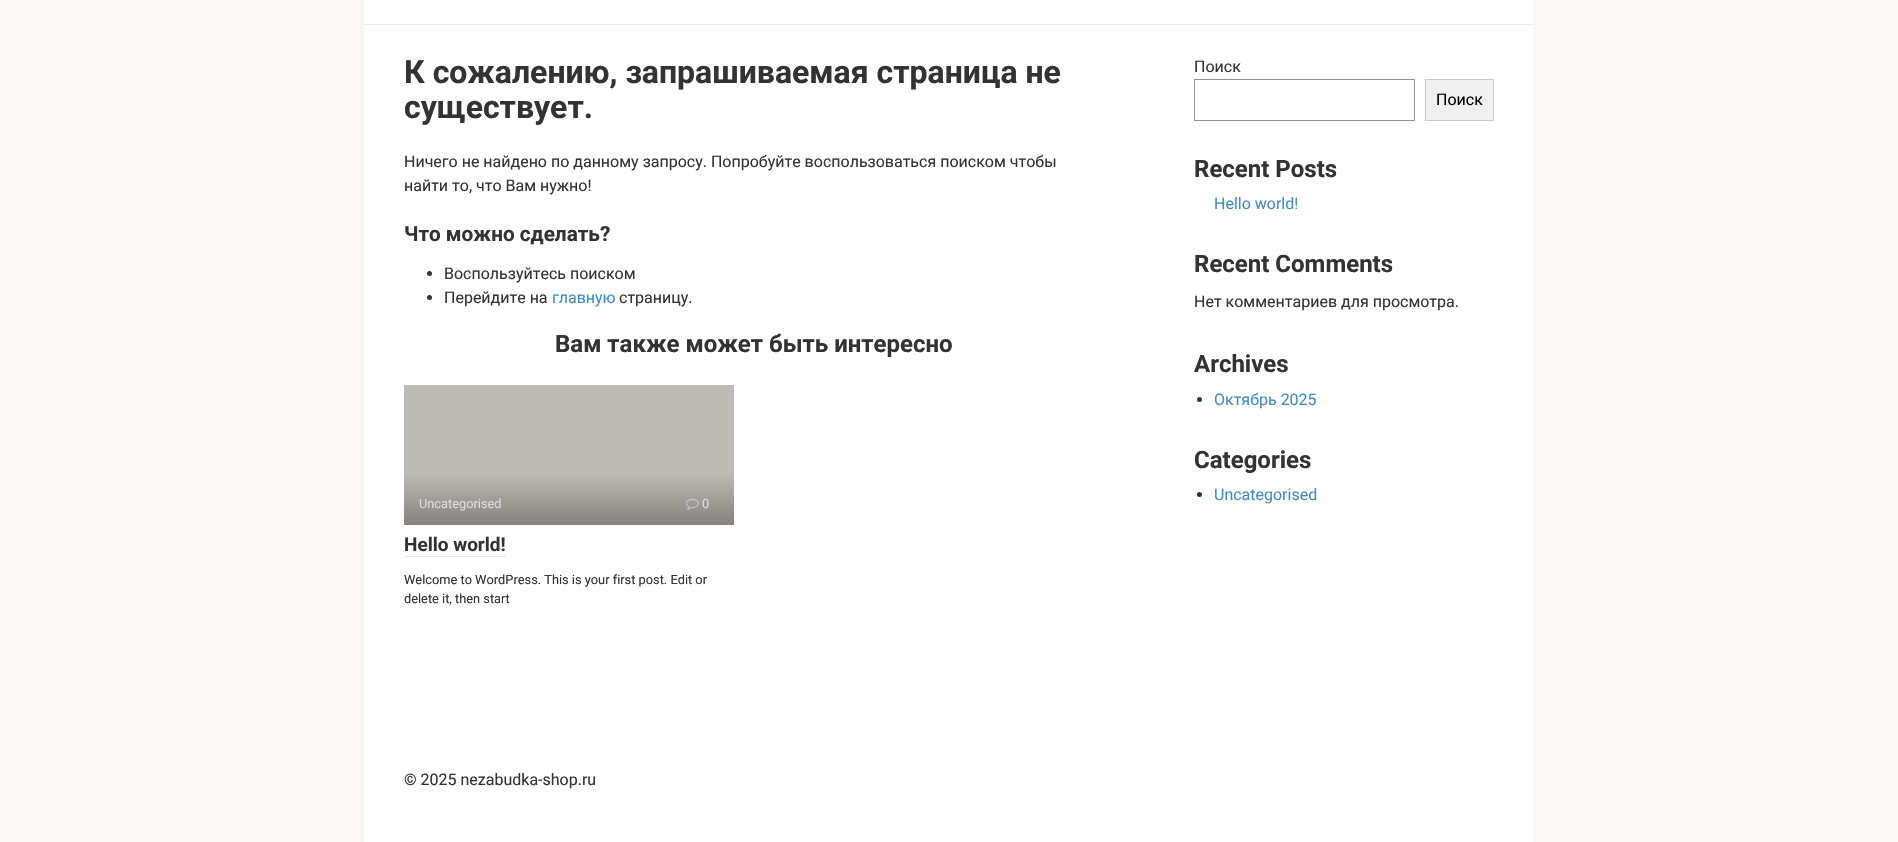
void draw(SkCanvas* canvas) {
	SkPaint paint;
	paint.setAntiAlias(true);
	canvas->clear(0xfff9f8f5);
	paint.setColor(0xffffffff);
	canvas->drawRect(SkRect::MakeXYWH(364, 0, 1170, 24), paint);
	paint.setColor(0xffececec);
	canvas->drawRect(SkRect::MakeXYWH(364, 24, 1170, 1), paint);
	paint.setColor(0xffffffff);
	canvas->drawRect(SkRect::MakeXYWH(364, 25, 1170, 817), paint);
	SkFont f1(fontMgr->matchFamilyStyle("Roboto", SkFontStyle::Bold()), 32);
	f1.setSubpixel(true);
	paint.setColor(0xff333333);
	canvas->drawString("К сожалению, запрашиваемая страница не", 404, 83, f1, paint);
	canvas->drawString("существует.", 404, 118, f1, paint);
	SkFont f2(fontMgr->matchFamilyStyle("Roboto", SkFontStyle::Normal()), 16);
	f2.setSubpixel(true);
	canvas->drawString("Ничего не найдено по данному запросу. Попробуйте воспользоваться поиском чтобы", 404, 167, f2, paint);
	canvas->drawString("найти то, что Вам нужно!", 404, 191, f2, paint);
	SkFont f3(fontMgr->matchFamilyStyle("Roboto", SkFontStyle::Bold()), 20.75);
	f3.setSubpixel(true);
	canvas->drawString("Что можно сделать?", 404, 241, f3, paint);
	canvas->drawCircle(429.5, 273.5, 2.5, paint);
	canvas->drawString("Воспользуйтесь поиском", 444, 279, f2, paint);
	canvas->drawCircle(429.5, 297.5, 2.5, paint);
	canvas->drawString("Перейдите на", 444, 303, f2, paint);
	paint.setColor(0xff428bca);
	canvas->drawString("главную", 552, 303, f2, paint);
	paint.setColor(0xff333333);
	canvas->drawString("страницу.", 619, 303, f2, paint);
	SkFont f4(fontMgr->matchFamilyStyle("Roboto", SkFontStyle::Bold()), 24);
	f4.setSubpixel(true);
	canvas->drawString("Вам также может быть интересно", 555, 352, f4, paint);
	paint.setColor(0xffbebab5);
	canvas->drawRect(SkRect::MakeXYWH(404, 385, 330, 88), paint);
	{
		const SkColor colors[] = {0xffbebab5, 0xff85827f};
		const float stops[] = {0, 1};
		const SkPoint ends[] = {{569, 473}, {569, 525}};
		paint.setShader(SkGradientShader::MakeLinear(ends, colors, stops, 2, SkTileMode::kClamp));
		paint.setAlpha(255);
	}
	canvas->drawRect(SkRect::MakeXYWH(404, 473, 330, 52), paint);
	SkFont f5(fontMgr->matchFamilyStyle("Roboto", SkFontStyle::Normal()), 12.8);
	f5.setSubpixel(true);
	paint.setShader(nullptr);
	paint.setColor(0xffdfddda);
	canvas->drawString("Uncategorised", 419, 508, f5, paint);
	canvas->drawImageRect(SkImages::DeferredFromEncodedData(SkData::MakeFromFileName("img1.png")), SkRect::MakeXYWH(686, 498, 13, 12), SkSamplingOptions());
	canvas->drawString("0", 702, 508, f5, paint);
	SkFont f6(fontMgr->matchFamilyStyle("Roboto", SkFontStyle::Bold()), 19);
	f6.setSubpixel(true);
	paint.setColor(0xff333333);
	canvas->drawString("Hello world!", 404, 551, f6, paint);
	paint.setColor(0xffe6e6e6);
	canvas->drawRect(SkRect::MakeXYWH(404, 556, 102, 1), paint);
	paint.setColor(0xff333333);
	canvas->drawString("Welcome to WordPress. This is your first post. Edit or", 404, 584, f5, paint);
	canvas->drawString("delete it, then start", 404, 603, f5, paint);
	canvas->drawString("Поиск", 1194, 72, f2, paint);
	paint.setStroke(true);
	paint.setStrokeWidth(1);
	paint.setColor(0xff949494);
	canvas->drawRect(SkRect::MakeXYWH(1194.5, 79.5, 220, 41), paint);
	paint.setStroke(false);
	paint.setColor(0xffefefef);
	canvas->drawRect(SkRect::MakeXYWH(1425.5, 79.5, 68, 41), paint);
	paint.setStroke(true);
	paint.setColor(0xffcccccc);
	canvas->drawRect(SkRect::MakeXYWH(1425.5, 79.5, 68, 41), paint);
	paint.setStroke(false);
	paint.setColor(0xff000000);
	canvas->drawString("Поиск", 1436, 105, f2, paint);
	paint.setColor(0xff333333);
	canvas->drawString("Recent Posts", 1194, 177, f4, paint);
	paint.setColor(0xff428bca);
	canvas->drawString("Hello world!", 1214, 209, f2, paint);
	paint.setColor(0xff333333);
	canvas->drawString("Recent Comments", 1194, 272, f4, paint);
	canvas->drawString("Нет комментариев для просмотра.", 1194, 307, f2, paint);
	canvas->drawString("Archives", 1194, 372, f4, paint);
	canvas->drawCircle(1199.5, 399.5, 2.5, paint);
	paint.setColor(0xff428bca);
	canvas->drawString("Октябрь 2025", 1214, 405, f2, paint);
	paint.setColor(0xff333333);
	canvas->drawString("Categories", 1194, 468, f4, paint);
	canvas->drawCircle(1199.5, 494.5, 2.5, paint);
	paint.setColor(0xff428bca);
	canvas->drawString("Uncategorised", 1214, 500, f2, paint);
	paint.setColor(0xff333333);
	canvas->drawString("© 2025 nezabudka-shop.ru", 404, 785, f2, paint);
}
